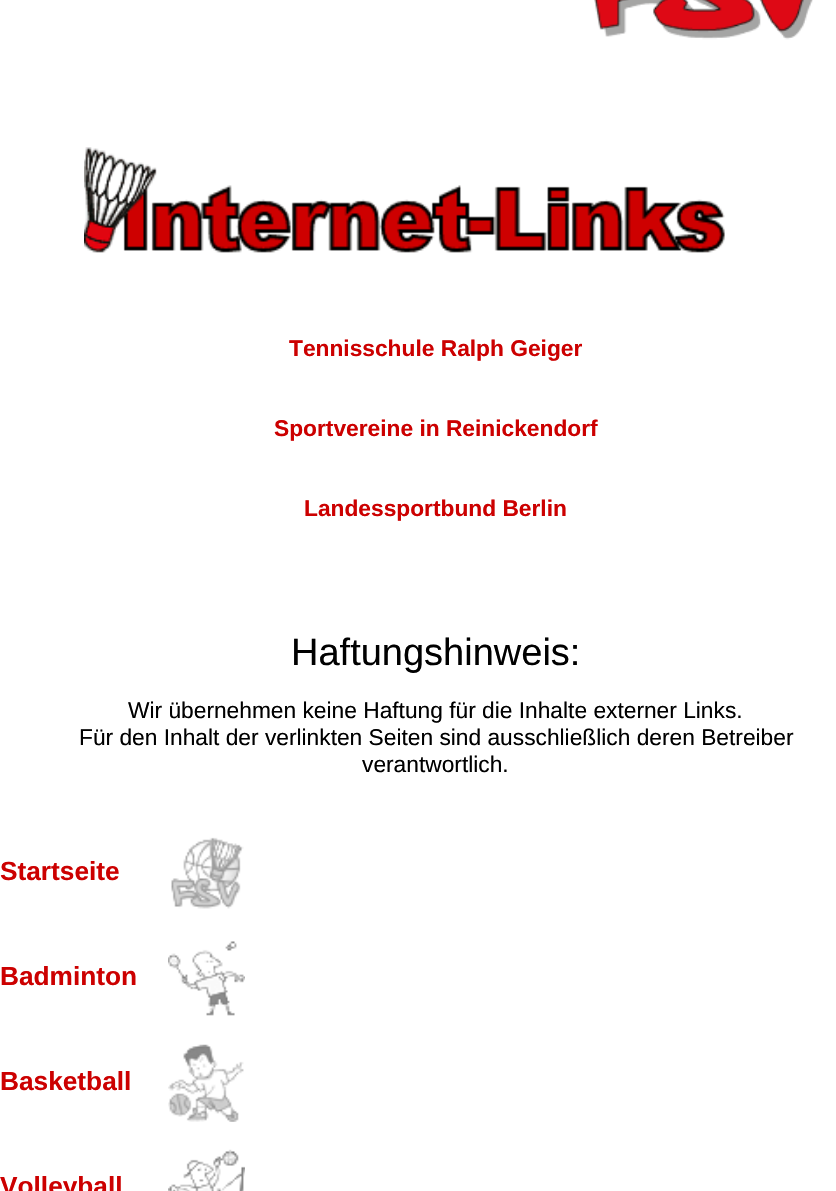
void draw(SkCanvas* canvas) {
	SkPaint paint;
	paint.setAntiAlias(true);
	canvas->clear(0xffffffff);
	canvas->drawImageRect(SkImages::DeferredFromEncodedData(SkData::MakeFromFileName("img1.png")), SkRect::MakeXYWH(594, 0, 219, 40), SkSamplingOptions());
	canvas->drawImageRect(SkImages::DeferredFromEncodedData(SkData::MakeFromFileName("img2.png")), SkRect::MakeXYWH(84, 147, 641, 106), SkSamplingOptions());
	SkFont f1(fontMgr->matchFamilyStyle("Liberation Sans", SkFontStyle::Bold()), 22.75);
	f1.setSubpixel(true);
	paint.setColor(0xffcc0000);
	canvas->drawString("Tennisschule Ralph Geiger", 289, 356, f1, paint);
	canvas->drawString("Sportvereine in Reinickendorf", 274, 436, f1, paint);
	canvas->drawString("Landessportbund Berlin", 304, 516, f1, paint);
	SkFont f2(fontMgr->matchFamilyStyle("Liberation Sans", SkFontStyle::Normal()), 38);
	f2.setSubpixel(true);
	paint.setColor(0xff000000);
	canvas->drawString("Haftungshinweis:", 291, 665, f2, paint);
	SkFont f3(fontMgr->matchFamilyStyle("Liberation Sans", SkFontStyle::Normal()), 22.75);
	f3.setSubpixel(true);
	canvas->drawString("Wir übernehmen keine Haftung für die Inhalte externer Links.", 128, 718, f3, paint);
	canvas->drawString("Für den Inhalt der verlinkten Seiten sind ausschließlich deren Betreiber", 79, 745, f3, paint);
	canvas->drawString("verantwortlich.", 362, 772, f3, paint);
	canvas->drawImageRect(SkImages::DeferredFromEncodedData(SkData::MakeFromFileName("img3.png")), SkRect::MakeXYWH(171, 837, 73, 72), SkSamplingOptions());
	SkFont f4(fontMgr->matchFamilyStyle("Liberation Sans", SkFontStyle::Bold()), 26.25);
	f4.setSubpixel(true);
	paint.setColor(0xffcc0000);
	canvas->drawString("Startseite", 0, 880, f4, paint);
	canvas->drawImageRect(SkImages::DeferredFromEncodedData(SkData::MakeFromFileName("img4.png")), SkRect::MakeXYWH(168, 941, 77, 75), SkSamplingOptions());
	canvas->drawString("Badminton", 0, 985, f4, paint);
	canvas->drawImageRect(SkImages::DeferredFromEncodedData(SkData::MakeFromFileName("img5.png")), SkRect::MakeXYWH(168, 1044, 76, 78), SkSamplingOptions());
	canvas->drawString("Basketball", 0, 1090, f4, paint);
	canvas->drawImageRect(SkImages::DeferredFromEncodedData(SkData::MakeFromFileName("img6.png")), SkRect::MakeXYWH(168, 1149, 77, 42), SkSamplingOptions());
	canvas->drawString("Volleyball", 0, 1195, f4, paint);
}
